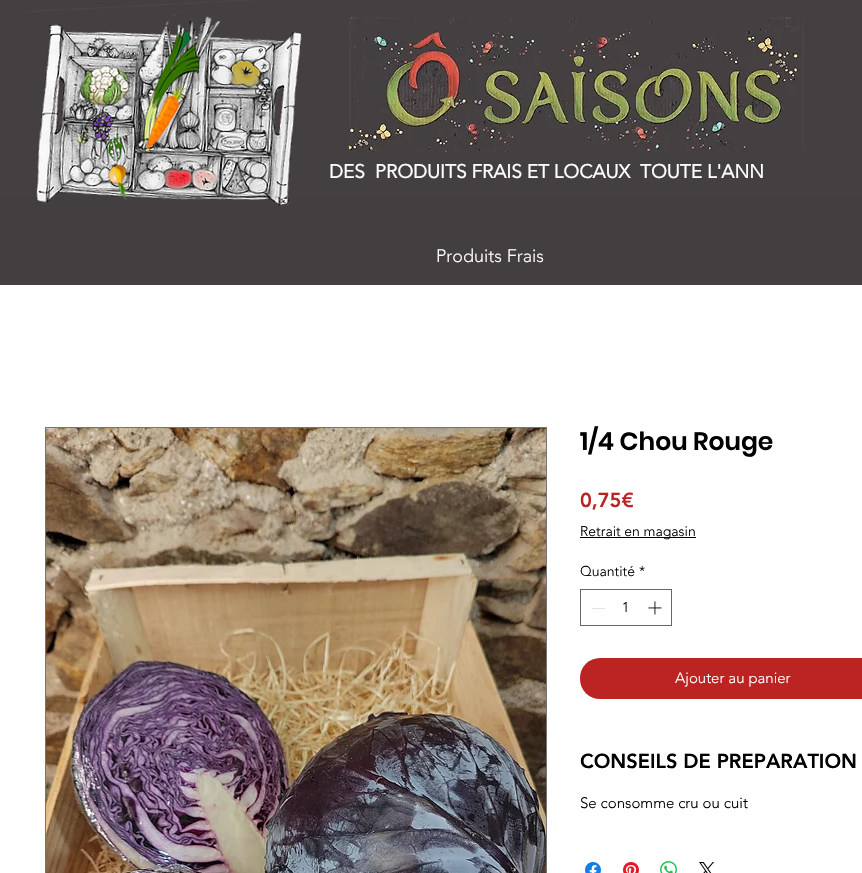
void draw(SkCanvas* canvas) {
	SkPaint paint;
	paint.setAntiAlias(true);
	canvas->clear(0xffffffff);
	paint.setColor(0xff443f41);
	canvas->drawRect(SkRect::MakeXYWH(0, 0, 862, 65), paint);
	canvas->drawRect(SkRect::MakeXYWH(0, 65, 862, 132), paint);
	paint.setColor(0xff433f41);
	canvas->drawRect(SkRect::MakeXYWH(0, 197, 862, 88), paint);
	canvas->drawImageRect(SkImages::DeferredFromEncodedData(SkData::MakeFromFileName("img1.png")), SkRect::MakeXYWH(26, 0, 276, 206), SkSamplingOptions());
	canvas->drawImageRect(SkImages::DeferredFromEncodedData(SkData::MakeFromFileName("img2.png")), SkRect::MakeXYWH(349, 17, 455, 135), SkSamplingOptions());
	SkFont f1(fontMgr->matchFamilyStyle("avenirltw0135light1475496", SkFontStyle::Bold()), 19);
	f1.setSubpixel(true);
	paint.setColor(0xffffffff);
	canvas->drawString("DES", 329, 178, f1, paint);
	canvas->drawString("PRODUITS FRAIS ET LOCAUX  TOUTE L'ANN", 375, 178, f1, paint);
	SkFont f2(fontMgr->matchFamilyStyle("avenirltw0135light1475496", SkFontStyle(300, SkFontStyle::kNormal_Width, SkFontStyle::kUpright_Slant)), 18);
	f2.setSubpixel(true);
	canvas->drawString("Produits Frais", 436, 262, f2, paint);
	paint.setStroke(true);
	paint.setStrokeWidth(1);
	paint.setColor(0xff757575);
	canvas->drawRect(SkRect::MakeXYWH(45.5, 427.5, 501, 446), paint);
	canvas->drawImageRect(SkImages::DeferredFromEncodedData(SkData::MakeFromFileName("img3.png")), SkRect::MakeXYWH(46, 428, 500, 445), SkSamplingOptions());
	SkFont f3(fontMgr->matchFamilyStyle("Poppins", SkFontStyle(600, SkFontStyle::kNormal_Width, SkFontStyle::kUpright_Slant)), 25);
	f3.setSubpixel(true);
	paint.setStroke(false);
	paint.setColor(0xff000000);
	canvas->drawString("1/4 Chou Rouge", 580, 450, f3, paint);
	SkFont f4(fontMgr->matchFamilyStyle("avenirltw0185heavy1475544", SkFontStyle(900, SkFontStyle::kNormal_Width, SkFontStyle::kUpright_Slant)), 20);
	f4.setSubpixel(true);
	paint.setColor(0xffbb2423);
	canvas->drawString("0,75€", 580, 507, f4, paint);
	paint.setColor(0xff000000);
	canvas->drawRect(SkRect::MakeXYWH(580, 537, 116, 1), paint);
	SkFont f5(fontMgr->matchFamilyStyle("avenirltw0135light1475496", SkFontStyle(300, SkFontStyle::kNormal_Width, SkFontStyle::kUpright_Slant)), 14);
	f5.setSubpixel(true);
	canvas->drawString("Retrait en magasin", 580, 536, f5, paint);
	canvas->drawString("Quantité", 580, 576, f5, paint);
	canvas->drawString("*", 639, 576, f5, paint);
	paint.setStroke(true);
	paint.setColor(0xff666666);
	canvas->drawRect(SkRect::MakeXYWH(580.5, 589.5, 91, 36), paint);
	paint.setStroke(false);
	paint.setColor(0xffe3e3e3);
	canvas->drawRect(SkRect::MakeXYWH(592, 608, 13, 1), paint);
	paint.setColor(0xff000000);
	canvas->drawString("1", 622, 612, f5, paint);
	canvas->drawImageRect(SkImages::DeferredFromEncodedData(SkData::MakeFromFileName("img4.png")), SkRect::MakeXYWH(648, 601, 14, 14), SkSamplingOptions());
	paint.setColor(0xffbb2423);
	canvas->drawRoundRect(SkRect::MakeXYWH(580, 658, 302, 41), 20, 20, paint);
	SkFont f6(fontMgr->matchFamilyStyle("avenirltw0135light1475496", SkFontStyle(300, SkFontStyle::kNormal_Width, SkFontStyle::kUpright_Slant)), 15);
	f6.setSubpixel(true);
	paint.setColor(0xffffffff);
	canvas->drawString("Ajouter au panier", 675, 683, f6, paint);
	paint.setColor(0xff000000);
	canvas->drawString("CONSEILS DE PREPARATION", 580, 768, f4, paint);
	canvas->drawString("Se consomme cru ou cuit", 580, 808, f6, paint);
	canvas->drawImageRect(SkImages::DeferredFromEncodedData(SkData::MakeFromFileName("img5.png")), SkRect::MakeXYWH(585, 862, 16, 11), SkSamplingOptions());
	canvas->drawImageRect(SkImages::DeferredFromEncodedData(SkData::MakeFromFileName("img6.png")), SkRect::MakeXYWH(623, 862, 16, 11), SkSamplingOptions());
	canvas->drawImageRect(SkImages::DeferredFromEncodedData(SkData::MakeFromFileName("img7.png")), SkRect::MakeXYWH(660, 861, 17, 12), SkSamplingOptions());
	canvas->drawImageRect(SkImages::DeferredFromEncodedData(SkData::MakeFromFileName("img8.png")), SkRect::MakeXYWH(699, 862, 15, 11), SkSamplingOptions());
}
